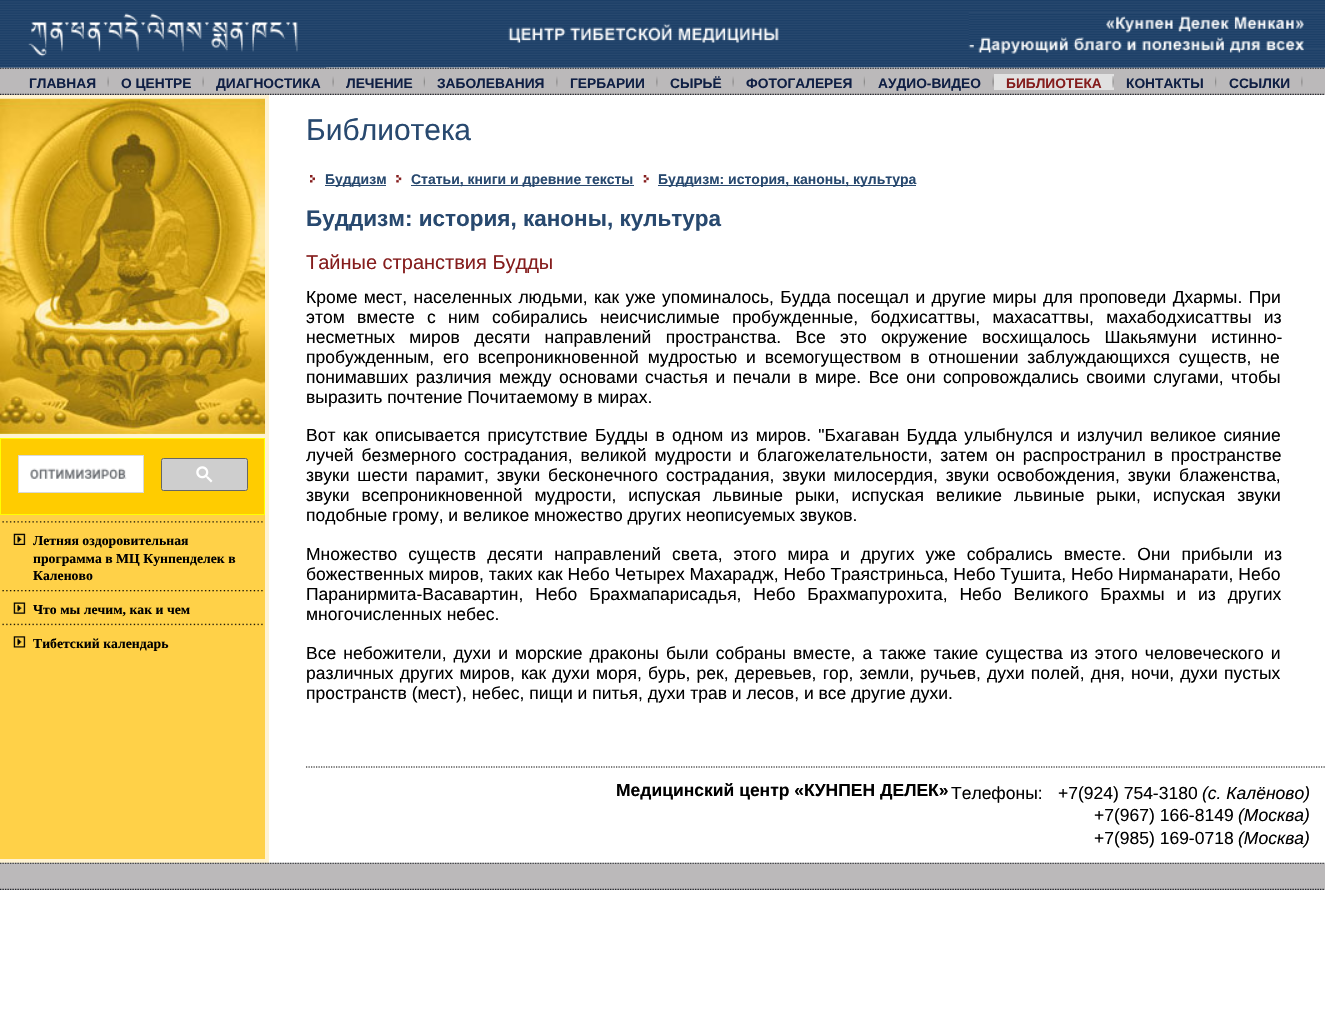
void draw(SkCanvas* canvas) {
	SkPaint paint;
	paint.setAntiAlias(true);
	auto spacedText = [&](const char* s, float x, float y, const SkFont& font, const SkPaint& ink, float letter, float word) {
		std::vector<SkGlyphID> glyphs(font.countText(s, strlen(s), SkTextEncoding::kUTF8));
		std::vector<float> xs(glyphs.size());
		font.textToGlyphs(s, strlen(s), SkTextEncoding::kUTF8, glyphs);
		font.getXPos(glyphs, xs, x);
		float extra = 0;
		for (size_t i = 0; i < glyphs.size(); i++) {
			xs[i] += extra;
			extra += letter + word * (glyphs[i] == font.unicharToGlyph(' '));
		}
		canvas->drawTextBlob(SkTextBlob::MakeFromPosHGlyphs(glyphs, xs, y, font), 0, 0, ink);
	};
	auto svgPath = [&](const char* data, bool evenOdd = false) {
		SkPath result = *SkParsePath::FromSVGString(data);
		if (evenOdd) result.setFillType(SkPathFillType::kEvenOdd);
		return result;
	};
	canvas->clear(0xffffffff);
	canvas->drawImageRect(SkImages::DeferredFromEncodedData(SkData::MakeFromFileName("img1.png")), SkRect::MakeXYWH(0, 0, 1325, 68), SkSamplingOptions());
	paint.setColor(0xffbbb9ba);
	canvas->drawRect(SkRect::MakeXYWH(0, 68, 1325, 27), paint);
	canvas->drawImageRect(SkImages::DeferredFromEncodedData(SkData::MakeFromFileName("img5.png")), SkRect::MakeXYWH(0, 67, 1325, 28), SkSamplingOptions());
	canvas->drawImageRect(SkImages::DeferredFromEncodedData(SkData::MakeFromFileName("img2.png")), SkRect::MakeXYWH(0, 13, 327, 55), SkSamplingOptions());
	canvas->drawImageRect(SkImages::DeferredFromEncodedData(SkData::MakeFromFileName("img3.png")), SkRect::MakeXYWH(508, 23, 271, 45), SkSamplingOptions());
	canvas->drawImageRect(SkImages::DeferredFromEncodedData(SkData::MakeFromFileName("img4.png")), SkRect::MakeXYWH(968, 12, 357, 56), SkSamplingOptions());
	canvas->drawImageRect(SkImages::DeferredFromEncodedData(SkData::MakeFromFileName("img6.png")), SkRect::MakeXYWH(107, 76, 2, 11), SkSamplingOptions());
	SkFont f1(fontMgr->matchFamilyStyle("Liberation Sans", SkFontStyle::Bold()), 13.75);
	f1.setSubpixel(true);
	paint.setColor(0xff0f1f44);
	canvas->drawString("ГЛАВНАЯ", 29, 88, f1, paint);
	canvas->drawImageRect(SkImages::DeferredFromEncodedData(SkData::MakeFromFileName("img6.png")), SkRect::MakeXYWH(202, 76, 2, 11), SkSamplingOptions());
	canvas->drawString("О ЦЕНТРЕ", 121, 88, f1, paint);
	canvas->drawImageRect(SkImages::DeferredFromEncodedData(SkData::MakeFromFileName("img6.png")), SkRect::MakeXYWH(332, 76, 2, 11), SkSamplingOptions());
	canvas->drawString("ДИАГНОСТИКА", 216, 88, f1, paint);
	canvas->drawImageRect(SkImages::DeferredFromEncodedData(SkData::MakeFromFileName("img7.png")), SkRect::MakeXYWH(423, 76, 2, 12), SkSamplingOptions());
	canvas->drawString("ЛЕЧЕНИЕ", 346, 88, f1, paint);
	canvas->drawImageRect(SkImages::DeferredFromEncodedData(SkData::MakeFromFileName("img8.png")), SkRect::MakeXYWH(556, 76, 2, 11), SkSamplingOptions());
	canvas->drawString("ЗАБОЛЕВАНИЯ", 437, 88, f1, paint);
	canvas->drawImageRect(SkImages::DeferredFromEncodedData(SkData::MakeFromFileName("img8.png")), SkRect::MakeXYWH(656, 76, 2, 11), SkSamplingOptions());
	canvas->drawString("ГЕРБАРИИ", 570, 88, f1, paint);
	canvas->drawImageRect(SkImages::DeferredFromEncodedData(SkData::MakeFromFileName("img6.png")), SkRect::MakeXYWH(732, 76, 2, 11), SkSamplingOptions());
	canvas->drawString("СЫРЬЁ", 670, 88, f1, paint);
	canvas->drawImageRect(SkImages::DeferredFromEncodedData(SkData::MakeFromFileName("img7.png")), SkRect::MakeXYWH(863, 76, 2, 12), SkSamplingOptions());
	canvas->drawString("ФОТОГАЛЕРЕЯ", 746, 88, f1, paint);
	canvas->drawImageRect(SkImages::DeferredFromEncodedData(SkData::MakeFromFileName("img6.png")), SkRect::MakeXYWH(992, 76, 2, 11), SkSamplingOptions());
	canvas->drawString("АУДИО-ВИДЕО", 878, 88, f1, paint);
	paint.setColor(0xffe1e1e1);
	canvas->drawRect(SkRect::MakeXYWH(994, 74, 120, 16), paint);
	canvas->drawImageRect(SkImages::DeferredFromEncodedData(SkData::MakeFromFileName("img9.png")), SkRect::MakeXYWH(1112, 76, 2, 12), SkSamplingOptions());
	paint.setColor(0xff851d1d);
	canvas->drawString("БИБЛИОТЕКА", 1006, 88, f1, paint);
	canvas->drawImageRect(SkImages::DeferredFromEncodedData(SkData::MakeFromFileName("img10.png")), SkRect::MakeXYWH(1215, 76, 2, 12), SkSamplingOptions());
	paint.setColor(0xff0f1f44);
	canvas->drawString("КОНТАКТЫ", 1126, 88, f1, paint);
	canvas->drawImageRect(SkImages::DeferredFromEncodedData(SkData::MakeFromFileName("img8.png")), SkRect::MakeXYWH(1301, 76, 2, 11), SkSamplingOptions());
	canvas->drawString("CСЫЛКИ", 1229, 88, f1, paint);
	paint.setColor(0xffffd148);
	canvas->drawRect(SkRect::MakeXYWH(0, 433, 265, 426), paint);
	paint.setColor(0xfffff3d1);
	canvas->drawRect(SkRect::MakeXYWH(265, 95, 4, 768), paint);
	canvas->drawRect(SkRect::MakeXYWH(0, 859, 269, 4), paint);
	canvas->drawRect(SkRect::MakeXYWH(0, 95, 265, 4), paint);
	canvas->drawImageRect(SkImages::DeferredFromEncodedData(SkData::MakeFromFileName("img11.png")), SkRect::MakeXYWH(0, 98, 265, 336), SkSamplingOptions());
	canvas->drawRect(SkRect::MakeXYWH(0, 434, 265, 4), paint);
	paint.setColor(0xffffcc00);
	canvas->drawRect(SkRect::MakeXYWH(0.5, 438.5, 264, 76), paint);
	paint.setStroke(true);
	paint.setStrokeWidth(1);
	paint.setColor(0xffffff00);
	canvas->drawRect(SkRect::MakeXYWH(0.5, 438.5, 264, 76), paint);
	paint.setStroke(false);
	paint.setColor(0xffffffff);
	canvas->drawRect(SkRect::MakeXYWH(18.5, 455.5, 125, 37), paint);
	paint.setStroke(true);
	paint.setColor(0xffd9d9d9);
	canvas->drawRect(SkRect::MakeXYWH(18.5, 455.5, 125, 37), paint);
	canvas->drawImageRect(SkImages::DeferredFromEncodedData(SkData::MakeFromFileName("img12.png")), SkRect::MakeXYWH(30, 468, 97, 11), SkSamplingOptions());
	paint.setStroke(false);
	paint.setColor(0xffcecece);
	canvas->drawRoundRect(SkRect::MakeXYWH(161.5, 458.5, 86, 32), 2, 2, paint);
	paint.setStroke(true);
	paint.setColor(0xff666666);
	canvas->drawRoundRect(SkRect::MakeXYWH(161.5, 458.5, 86, 32), 2, 2, paint);
	canvas->drawImageRect(SkImages::DeferredFromEncodedData(SkData::MakeFromFileName("img13.png")), SkRect::MakeXYWH(196, 466, 17, 17), SkSamplingOptions());
	canvas->drawImageRect(SkImages::DeferredFromEncodedData(SkData::MakeFromFileName("img14.png")), SkRect::MakeXYWH(2, 521, 261, 24), SkSamplingOptions());
	SkFont f2(fontMgr->matchFamilyStyle("Liberation Serif", SkFontStyle::Bold()), 13.75);
	f2.setSubpixel(true);
	paint.setStroke(false);
	paint.setColor(0xff000000);
	canvas->drawString("Летняя оздоровительная", 33, 545, f2, paint);
	canvas->drawString("программа в МЦ Кунпенделек в", 33, 563, f2, paint);
	canvas->drawString("Каленово", 33, 580, f2, paint);
	canvas->drawImageRect(SkImages::DeferredFromEncodedData(SkData::MakeFromFileName("img15.png")), SkRect::MakeXYWH(2, 590, 261, 24), SkSamplingOptions());
	canvas->drawString("Что мы лечим, как и чем", 33, 614, f2, paint);
	canvas->drawImageRect(SkImages::DeferredFromEncodedData(SkData::MakeFromFileName("img16.png")), SkRect::MakeXYWH(2, 623, 261, 25), SkSamplingOptions());
	canvas->drawString("Тибетский календарь", 33, 648, f2, paint);
	SkFont f3(fontMgr->matchFamilyStyle("Liberation Sans", SkFontStyle::Normal()), 30);
	f3.setSubpixel(true);
	paint.setColor(0xff28496f);
	canvas->drawString("Библиотека", 306, 140, f3, paint);
	canvas->drawImageRect(SkImages::DeferredFromEncodedData(SkData::MakeFromFileName("img17.png")), SkRect::MakeXYWH(310, 175, 5, 8), SkSamplingOptions());
	canvas->drawRect(SkRect::MakeXYWH(325, 185, 61, 1), paint);
	SkFont f4(fontMgr->matchFamilyStyle("Liberation Sans", SkFontStyle::Bold()), 14);
	f4.setSubpixel(true);
	canvas->drawString("Буддизм", 325, 184, f4, paint);
	canvas->drawImageRect(SkImages::DeferredFromEncodedData(SkData::MakeFromFileName("img18.png")), SkRect::MakeXYWH(396, 175, 6, 8), SkSamplingOptions());
	canvas->drawRect(SkRect::MakeXYWH(411, 185, 223, 1), paint);
	canvas->drawString("Статьи, книги и древние тексты", 411, 184, f4, paint);
	canvas->drawImageRect(SkImages::DeferredFromEncodedData(SkData::MakeFromFileName("img19.png")), SkRect::MakeXYWH(643, 175, 6, 8), SkSamplingOptions());
	canvas->drawRect(SkRect::MakeXYWH(658, 185, 258, 1), paint);
	canvas->drawString("Буддизм: история, каноны, культура", 658, 184, f4, paint);
	SkFont f5(fontMgr->matchFamilyStyle("Liberation Sans", SkFontStyle::Bold()), 22.5);
	f5.setSubpixel(true);
	canvas->drawString("Буддизм: история, каноны, культура", 306, 226, f5, paint);
	SkFont f6(fontMgr->matchFamilyStyle("Liberation Sans", SkFontStyle::Normal()), 20);
	f6.setSubpixel(true);
	paint.setColor(0xff851d1d);
	canvas->drawString("Тайные странствия Будды", 306, 269, f6, paint);
	SkFont f7(fontMgr->matchFamilyStyle("Liberation Sans", SkFontStyle::Normal()), 17.5);
	f7.setSubpixel(true);
	paint.setColor(0xff000000);
	spacedText("Кроме мест, населенных людьми, как уже упоминалось, Будда посещал и другие миры для проповеди Дхармы. При", 306, 303, f7, paint, 0, 1.5);
	spacedText("этом вместе с ним собирались неисчислимые пробужденные, бодхисаттвы, махасаттвы, махабодхисаттвы из", 306, 323, f7, paint, 0, 7.5);
	spacedText("несметных миров десяти направлений пространства. Все это окружение восхищалось Шакьямуни истинно-", 306, 343, f7, paint, 0, 9.5);
	spacedText("пробужденным, его всепроникновенной мудростью и всемогуществом в отношении заблуждающихся существ, не", 306, 363, f7, paint, 0, 4);
	spacedText("понимавших различия между основами счастья и печали в мире. Все они сопровождались своими слугами, чтобы", 306, 383, f7, paint, 0, 2.6);
	canvas->drawString("выразить почтение Почитаемому в мирах.", 306, 403, f7, paint);
	spacedText("Вот как описывается присутствие Будды в одном из миров. \"Бхагаван Будда улыбнулся и излучил великое сияние", 306, 441, f7, paint, 0, 2.4);
	spacedText("лучей безмерного сострадания, великой мудрости и благожелательности, затем он распространил в пространстве", 306, 461, f7, paint, 0, 3);
	spacedText("звуки шести парамит, звуки бесконечного сострадания, звуки милосердия, звуки освобождения, звуки блаженства,", 306, 481, f7, paint, 0, 3);
	spacedText("звуки всепроникновенной мудрости, испуская львиные рыки, испуская великие львиные рыки, испуская звуки", 306, 501, f7, paint, 0, 7.1);
	canvas->drawString("подобные грому, и великое множество других неописуемых звуков.", 306, 521, f7, paint);
	spacedText("Множество существ десяти направлений света, этого мира и других уже собрались вместе. Они прибыли из", 306, 560, f7, paint, 0, 6.25);
	canvas->drawString("божественных миров, таких как Небо Четырех Махарадж, Небо Траястриньса, Небо Тушита, Небо Нирманарати, Небо", 306, 580, f7, paint);
	spacedText("Паранирмита-Васавартин, Небо Брахмапарисадья, Небо Брахмапурохита, Небо Великого Брахмы и из других", 306, 600, f7, paint, 0, 7);
	canvas->drawString("многочисленных небес.", 306, 620, f7, paint);
	spacedText("Все небожители, духи и морские драконы были собраны вместе, а также такие существа из этого человеческого и", 306, 659, f7, paint, 0, 2.25);
	spacedText("различных других миров, как духи моря, бурь, рек, деревьев, гор, земли, ручьев, духи полей, дня, ночи, духи пустых", 306, 679, f7, paint, 0, 1.3);
	canvas->drawString("пространств (мест), небес, пищи и питья, духи трав и лесов, и все другие духи.", 306, 699, f7, paint);
	paint.setStroke(true);
	paint.setStrokeWidth(1.2);
	paint.setPathEffect(SkDashPathEffect::Make({{1.25f, 1.25f}}, 0));
	canvas->drawPath(svgPath("M306 767H1325"), paint);
	paint.setPathEffect(nullptr);
	SkFont f8(fontMgr->matchFamilyStyle("Liberation Sans", SkFontStyle::Bold()), 17.5);
	f8.setSubpixel(true);
	paint.setStroke(false);
	canvas->drawString("Медицинский центр «КУНПЕН ДЕЛЕК»", 616, 796, f8, paint);
	canvas->drawString("Телефоны:", 951, 799, f7, paint);
	canvas->drawString("+7(924) 754-3180", 1058, 799, f7, paint);
	SkFont f9(fontMgr->matchFamilyStyle("Liberation Sans", SkFontStyle::Italic()), 17.5);
	f9.setSubpixel(true);
	canvas->drawString("(с. Калёново)", 1202, 799, f9, paint);
	canvas->drawString("+7(967) 166-8149", 1094, 821, f7, paint);
	canvas->drawString("(Москва)", 1238, 821, f9, paint);
	canvas->drawString("+7(985) 169-0718", 1094, 844, f7, paint);
	canvas->drawString("(Москва)", 1238, 844, f9, paint);
	paint.setColor(0xffbbb9ba);
	canvas->drawRect(SkRect::MakeXYWH(0, 863, 1325, 27), paint);
	canvas->drawImageRect(SkImages::DeferredFromEncodedData(SkData::MakeFromFileName("img20.png")), SkRect::MakeXYWH(0, 862, 1325, 28), SkSamplingOptions());
}
